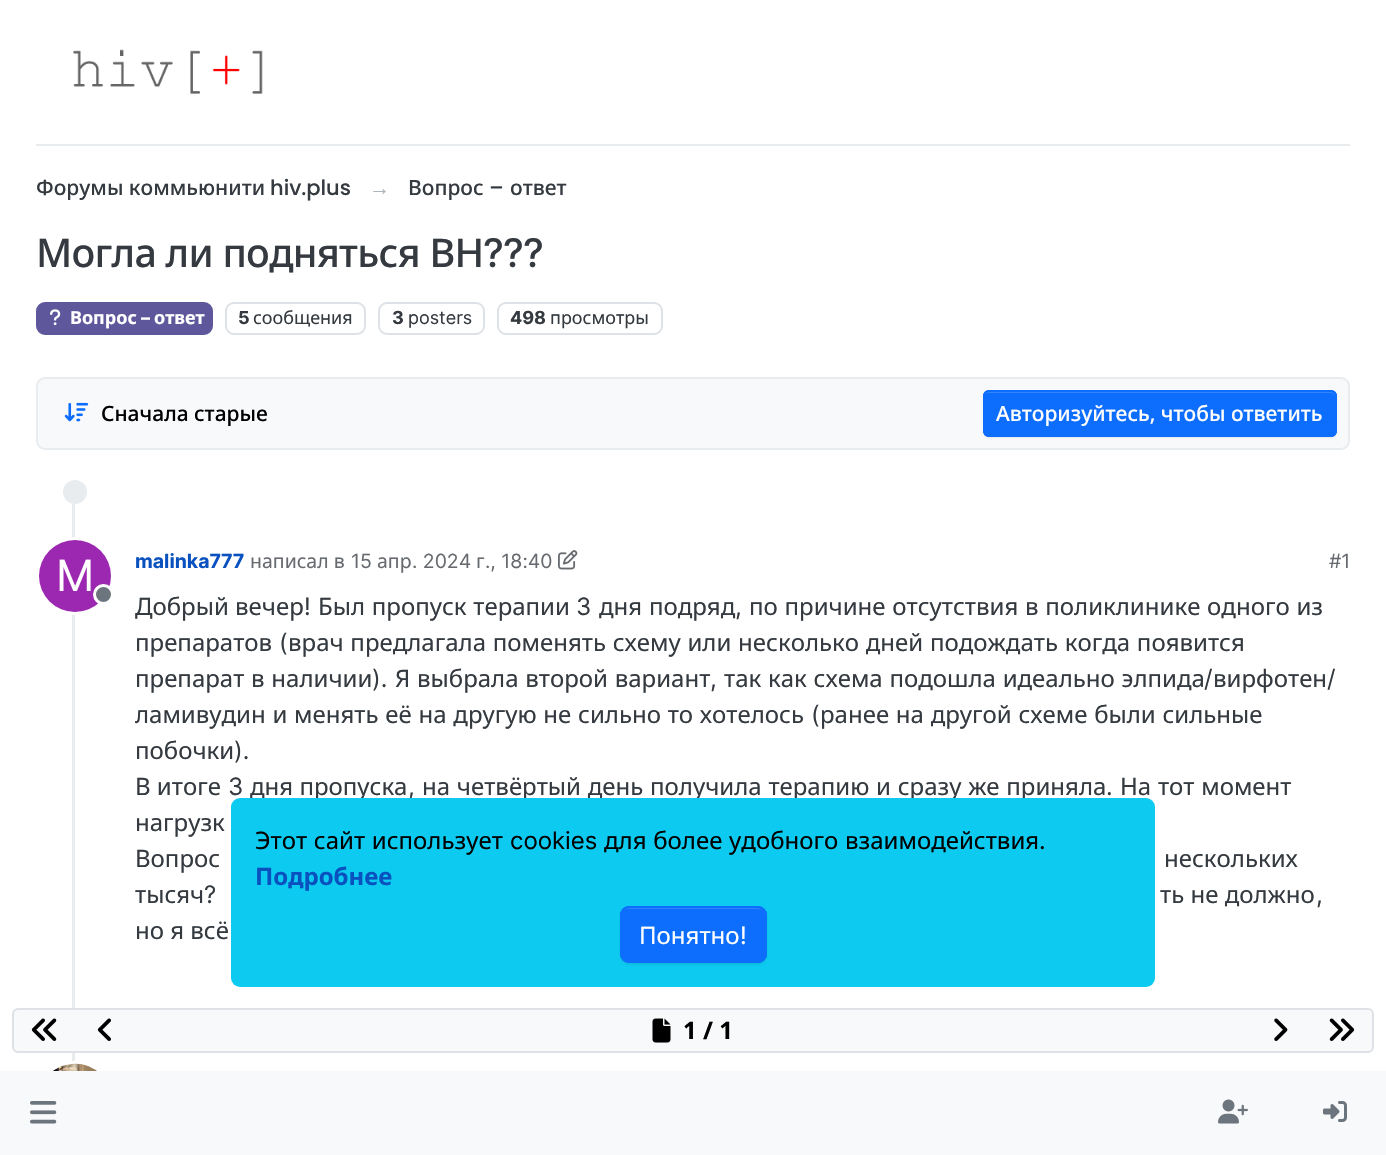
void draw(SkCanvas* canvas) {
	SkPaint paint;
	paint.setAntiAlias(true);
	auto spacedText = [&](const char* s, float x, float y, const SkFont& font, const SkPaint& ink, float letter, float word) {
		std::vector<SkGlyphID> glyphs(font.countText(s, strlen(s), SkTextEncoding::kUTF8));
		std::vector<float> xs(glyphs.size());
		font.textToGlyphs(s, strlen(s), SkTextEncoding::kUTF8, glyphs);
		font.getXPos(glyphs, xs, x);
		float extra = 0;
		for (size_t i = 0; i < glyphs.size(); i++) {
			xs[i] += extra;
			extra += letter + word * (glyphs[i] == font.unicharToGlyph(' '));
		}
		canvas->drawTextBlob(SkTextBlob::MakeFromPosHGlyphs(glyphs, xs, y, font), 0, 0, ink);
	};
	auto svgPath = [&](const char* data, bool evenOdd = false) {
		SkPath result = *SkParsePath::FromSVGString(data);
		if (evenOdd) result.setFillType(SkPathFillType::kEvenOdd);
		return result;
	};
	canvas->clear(0xffffffff);
	paint.setColor(0xffe9ecef);
	canvas->drawRect(SkRect::MakeXYWH(36, 144, 1314, 2), paint);
	canvas->drawImageRect(SkImages::DeferredFromEncodedData(SkData::MakeFromFileName("img1.png")), SkRect::MakeXYWH(73, 49, 190, 45), SkSamplingOptions());
	SkFont f1(fontMgr->matchFamilyStyle("Noto Sans", SkFontStyle(500, SkFontStyle::kNormal_Width, SkFontStyle::kUpright_Slant)), 21);
	f1.setSubpixel(true);
	paint.setColor(0xff343a40);
	canvas->drawString("Форумы коммьюнити", 36, 195, f1, paint);
	SkFont f2(fontMgr->matchFamilyStyle("Poppins", SkFontStyle(500, SkFontStyle::kNormal_Width, SkFontStyle::kUpright_Slant)), 21);
	f2.setSubpixel(true);
	canvas->drawString("hiv.plus", 270, 195, f2, paint);
	canvas->drawString("Вопрос", 408, 195, f1, paint);
	canvas->drawString("–", 489, 195, f2, paint);
	canvas->drawString("ответ", 510, 195, f1, paint);
	SkFont f3(fontMgr->matchFamilyStyle("Liberation Sans", SkFontStyle::Normal()), 21);
	f3.setSubpixel(true);
	paint.setColor(0xffadb5bd);
	canvas->drawString("→", 369, 195, f3, paint);
	SkFont f4(fontMgr->matchFamilyStyle("Noto Sans", SkFontStyle(500, SkFontStyle::kNormal_Width, SkFontStyle::kUpright_Slant)), 39.5);
	f4.setSubpixel(true);
	paint.setColor(0xff343a40);
	spacedText("Могла ли подняться ВН", 36, 267, f4, paint, -0.75, 0);
	SkFont f5(fontMgr->matchFamilyStyle("Inter", SkFontStyle(500, SkFontStyle::kNormal_Width, SkFontStyle::kUpright_Slant)), 39.5);
	f5.setSubpixel(true);
	spacedText("?\077?", 483, 267, f5, paint, -0.75, 0);
	paint.setColor(0xff5f579c);
	canvas->drawRoundRect(SkRect::MakeXYWH(37, 303, 175, 31), 8, 8, paint);
	paint.setStroke(true);
	paint.setStrokeWidth(2);
	canvas->drawRoundRect(SkRect::MakeXYWH(37, 303, 175, 31), 8, 8, paint);
	canvas->drawImageRect(SkImages::DeferredFromEncodedData(SkData::MakeFromFileName("img2.png")), SkRect::MakeXYWH(50, 309, 11, 17), SkSamplingOptions());
	SkFont f6(fontMgr->matchFamilyStyle("Noto Sans", SkFontStyle::Bold()), 18);
	f6.setSubpixel(true);
	paint.setStroke(false);
	paint.setColor(0xffffffff);
	canvas->drawString("Вопрос", 70, 324, f6, paint);
	SkFont f7(fontMgr->matchFamilyStyle("Inter", SkFontStyle::Bold()), 18);
	f7.setSubpixel(true);
	canvas->drawString("–", 141, 324, f7, paint);
	canvas->drawString("ответ", 154, 324, f6, paint);
	paint.setStroke(true);
	paint.setColor(0xffdee2e6);
	canvas->drawRoundRect(SkRect::MakeXYWH(226, 303, 139, 31), 8, 8, paint);
	paint.setStroke(false);
	paint.setColor(0xff343a40);
	canvas->drawString("5", 238, 324, f7, paint);
	SkFont f8(fontMgr->matchFamilyStyle("Noto Sans", SkFontStyle::Normal()), 18);
	f8.setSubpixel(true);
	canvas->drawString("сообщения", 253, 324, f8, paint);
	paint.setStroke(true);
	paint.setColor(0xffdee2e6);
	canvas->drawRoundRect(SkRect::MakeXYWH(379, 303, 105, 31), 8, 8, paint);
	paint.setStroke(false);
	paint.setColor(0xff343a40);
	canvas->drawString("3", 392, 324, f7, paint);
	SkFont f9(fontMgr->matchFamilyStyle("Inter", SkFontStyle::Normal()), 18);
	f9.setSubpixel(true);
	canvas->drawString("posters", 408, 324, f9, paint);
	paint.setStroke(true);
	paint.setColor(0xffdee2e6);
	canvas->drawRoundRect(SkRect::MakeXYWH(498, 303, 164, 31), 8, 8, paint);
	paint.setStroke(false);
	paint.setColor(0xff343a40);
	canvas->drawString("498", 510, 324, f7, paint);
	canvas->drawString("просмотры", 550, 324, f8, paint);
	paint.setColor(0xfff8f9fa);
	canvas->drawRoundRect(SkRect::MakeXYWH(37, 378, 1312, 71), 8, 8, paint);
	paint.setStroke(true);
	paint.setColor(0xffe9ecef);
	canvas->drawRoundRect(SkRect::MakeXYWH(37, 378, 1312, 71), 8, 8, paint);
	canvas->drawImageRect(SkImages::DeferredFromEncodedData(SkData::MakeFromFileName("img3.png")), SkRect::MakeXYWH(64, 402, 25, 20), SkSamplingOptions());
	paint.setStroke(false);
	paint.setColor(0xff000000);
	canvas->drawString("Сначала старые", 101, 421, f1, paint);
	paint.setColor(0x12000000);
	paint.setMaskFilter(SkMaskFilter::MakeBlur(kNormal_SkBlurStyle, 1));
	canvas->drawRoundRect(SkRect::MakeXYWH(983, 392, 354, 46), 6, 6, paint);
	paint.setMaskFilter(nullptr);
	paint.setColor(0xff0d6efd);
	canvas->drawRoundRect(SkRect::MakeXYWH(983, 390, 354, 47), 6, 6, paint);
	paint.setColor(0xff3184fd);
	canvas->drawPath(svgPath("M988 393H1330C1333 393 1335 395 1335 398V397C1335 394 1333 392 1330 392H989C986 392 984 394 984 397V398C984 395 986 393 988 393Z"), paint);
	paint.setStroke(true);
	paint.setColor(0xff0d6efd);
	canvas->drawRoundRect(SkRect::MakeXYWH(984, 391, 352, 45), 5, 5, paint);
	paint.setStroke(false);
	paint.setColor(0xffffffff);
	canvas->drawString("Авторизуйтесь, чтобы ответить", 996, 421, f1, paint);
	paint.setColor(0xffe9ecef);
	canvas->drawRect(SkRect::MakeXYWH(72, 504, 3, 504), paint);
	canvas->drawCircle(75, 492, 12, paint);
	paint.setStroke(true);
	paint.setStrokeWidth(3);
	paint.setColor(0xffffffff);
	canvas->drawCircle(75, 576, 37.5, paint);
	paint.setStroke(false);
	paint.setColor(0xff9c27b0);
	canvas->drawCircle(75, 576, 36, paint);
	SkFont f10(fontMgr->matchFamilyStyle("Inter", SkFontStyle::Normal()), 43);
	f10.setSubpixel(true);
	paint.setColor(0xffffffff);
	canvas->drawString("M", 56, 591, f10, paint);
	paint.setColor(0xff6c757d);
	canvas->drawCircle(103.5, 594.5, 9, paint);
	paint.setStroke(true);
	paint.setColor(0xffffffff);
	canvas->drawCircle(103.5, 594.5, 9, paint);
	SkFont f11(fontMgr->matchFamilyStyle("Inter", SkFontStyle::Bold()), 19.5);
	f11.setSubpixel(true);
	paint.setStroke(false);
	paint.setColor(0xff0951be);
	canvas->drawString("malinka777", 135, 568, f11, paint);
	SkFont f12(fontMgr->matchFamilyStyle("Noto Sans", SkFontStyle::Normal()), 19.5);
	f12.setSubpixel(true);
	paint.setColor(0xff676b70);
	canvas->drawString("написал в", 250, 568, f12, paint);
	SkFont f13(fontMgr->matchFamilyStyle("Inter", SkFontStyle::Normal()), 19.5);
	f13.setSubpixel(true);
	canvas->drawString("15", 351, 568, f13, paint);
	canvas->drawString("апр", 377, 568, f12, paint);
	canvas->drawString(". 2024", 412, 568, f13, paint);
	canvas->drawString("г", 476, 568, f12, paint);
	canvas->drawString("., 18:40", 485, 568, f13, paint);
	canvas->drawImageRect(SkImages::DeferredFromEncodedData(SkData::MakeFromFileName("img4.png")), SkRect::MakeXYWH(558, 550, 20, 20), SkSamplingOptions());
	canvas->drawString("#1", 1329, 568, f13, paint);
	SkFont f14(fontMgr->matchFamilyStyle("Noto Sans", SkFontStyle::Normal()), 24);
	f14.setSubpixel(true);
	paint.setColor(0xff343a40);
	canvas->drawString("Добрый вечер", 135, 615, f14, paint);
	SkFont f15(fontMgr->matchFamilyStyle("Inter", SkFontStyle::Normal()), 24);
	f15.setSubpixel(true);
	canvas->drawString("!", 304, 615, f15, paint);
	spacedText("Был пропуск терапии", 318, 615, f14, paint, 0, 0.5);
	canvas->drawString("3", 576, 615, f15, paint);
	spacedText("дня подряд", 599, 615, f14, paint, 0, 0.5);
	canvas->drawString(",", 735, 615, f15, paint);
	spacedText("по причине отсутствия в поликлинике одного из", 749, 615, f14, paint, 0, 0.5);
	canvas->drawString("препаратов", 135, 651, f14, paint);
	canvas->drawString("(", 279, 651, f15, paint);
	spacedText("врач предлагала поменять схему или несколько дней подождать когда появится", 288, 651, f14, paint, 0, 0.5);
	spacedText("препарат в наличии", 135, 687, f14, paint, 0, 0.5);
	canvas->drawString(").", 372, 687, f15, paint);
	spacedText("Я выбрала второй вариант", 395, 687, f14, paint, 0, 0.5);
	canvas->drawString(",", 710, 687, f15, paint);
	spacedText("так как схема подошла идеально элпида", 724, 687, f14, paint, 0, 0.5);
	canvas->drawString("/", 1204, 687, f15, paint);
	canvas->drawString("вирфотен", 1213, 687, f14, paint);
	canvas->drawString("/", 1327, 687, f15, paint);
	spacedText("ламивудин и менять её на другую не сильно то хотелось", 135, 723, f14, paint, 0, 0.5);
	canvas->drawString("(", 811, 723, f15, paint);
	spacedText("ранее на другой схеме были сильные", 820, 723, f14, paint, 0, 0.5);
	canvas->drawString("побочки", 135, 759, f14, paint);
	canvas->drawString(").", 234, 759, f15, paint);
	canvas->drawString("В итоге", 135, 795, f14, paint);
	canvas->drawString("3", 228, 795, f15, paint);
	canvas->drawString("дня пропуска", 250, 795, f14, paint);
	canvas->drawString(",", 408, 795, f15, paint);
	spacedText("на четвёртый день получила терапию и сразу же приняла", 422, 795, f14, paint, 0, 0.5);
	canvas->drawString(".", 1106, 795, f15, paint);
	spacedText("На тот момент", 1120, 795, f14, paint, 0, 0.5);
	canvas->drawString("нагрузк", 135, 831, f14, paint);
	canvas->drawString("Вопрос", 135, 867, f14, paint);
	canvas->drawString("нескольких", 1164, 867, f14, paint);
	canvas->drawString("тысяч", 135, 903, f14, paint);
	canvas->drawString("?", 204, 903, f15, paint);
	canvas->drawString("ть не должно", 1160, 903, f14, paint);
	canvas->drawString(",", 1316, 903, f15, paint);
	canvas->drawString("но я всё", 135, 939, f14, paint);
	paint.setColor(0xffe9ecef);
	canvas->drawRect(SkRect::MakeXYWH(72, 1053, 3, 9), paint);
	paint.setStroke(true);
	paint.setColor(0xffffffff);
	canvas->drawCircle(75, 1100, 37.5, paint);
	canvas->drawImageRect(SkImages::DeferredFromEncodedData(SkData::MakeFromFileName("img5.png")), SkRect::MakeXYWH(53, 1063, 44, 8), SkSamplingOptions());
	paint.setStroke(false);
	paint.setColor(0xff0dcaf0);
	canvas->drawRoundRect(SkRect::MakeXYWH(231, 798, 924, 189), 9, 9, paint);
	paint.setColor(0xff000000);
	spacedText("Этот сайт использует", 255, 849, f14, paint, 0, 0.5);
	canvas->drawString("cookies", 510, 849, f15, paint);
	spacedText("для более удобного взаимодействия", 604, 849, f14, paint, 0, 0.5);
	canvas->drawString(".", 1039, 849, f15, paint);
	SkFont f16(fontMgr->matchFamilyStyle("Noto Sans", SkFontStyle::Bold()), 24);
	f16.setSubpixel(true);
	paint.setColor(0xff0951be);
	canvas->drawString("Подробнее", 255, 885, f16, paint);
	paint.setColor(0x12000000);
	paint.setMaskFilter(SkMaskFilter::MakeBlur(kNormal_SkBlurStyle, 1));
	canvas->drawRoundRect(SkRect::MakeXYWH(620, 908, 147, 57), 9, 9, paint);
	paint.setMaskFilter(nullptr);
	paint.setColor(0xff0d6efd);
	canvas->drawRoundRect(SkRect::MakeXYWH(620, 906, 147, 57), 9, 9, paint);
	paint.setColor(0xff3184fd);
	canvas->drawPath(svgPath("M628 909H758C762 909 765 912 765 916C765 912 761 908 757 908H629C625 908 621 912 621 916C621 912 624 909 628 909Z"), paint);
	paint.setStroke(true);
	paint.setStrokeWidth(2);
	paint.setColor(0xff0d6efd);
	canvas->drawRoundRect(SkRect::MakeXYWH(621, 907, 145, 55), 8, 8, paint);
	paint.setStroke(false);
	paint.setColor(0xffffffff);
	canvas->drawString("Понятно", 639, 944, f14, paint);
	canvas->drawString("!", 740, 944, f15, paint);
	paint.setColor(0xfff8f9fa);
	canvas->drawRoundRect(SkRect::MakeXYWH(13, 1009, 1360, 43), 5, 5, paint);
	paint.setStroke(true);
	paint.setColor(0xffdee2e6);
	canvas->drawRoundRect(SkRect::MakeXYWH(13, 1009, 1360, 43), 5, 5, paint);
	canvas->drawImageRect(SkImages::DeferredFromEncodedData(SkData::MakeFromFileName("img6.png")), SkRect::MakeXYWH(31, 1018, 26, 23), SkSamplingOptions());
	canvas->drawImageRect(SkImages::DeferredFromEncodedData(SkData::MakeFromFileName("img7.png")), SkRect::MakeXYWH(97, 1018, 14, 23), SkSamplingOptions());
	canvas->drawImageRect(SkImages::DeferredFromEncodedData(SkData::MakeFromFileName("img8.png")), SkRect::MakeXYWH(652, 1018, 19, 25), SkSamplingOptions());
	paint.setStroke(false);
	paint.setColor(0xff000000);
	canvas->drawString("1 / 1", 683, 1039, f16, paint);
	canvas->drawImageRect(SkImages::DeferredFromEncodedData(SkData::MakeFromFileName("img9.png")), SkRect::MakeXYWH(1274, 1018, 14, 23), SkSamplingOptions());
	canvas->drawImageRect(SkImages::DeferredFromEncodedData(SkData::MakeFromFileName("img10.png")), SkRect::MakeXYWH(1329, 1018, 26, 23), SkSamplingOptions());
	paint.setColor(0xfff8f9fa);
	canvas->drawRect(SkRect::MakeXYWH(0, 1071, 1386, 84), paint);
	canvas->drawImageRect(SkImages::DeferredFromEncodedData(SkData::MakeFromFileName("img11.png")), SkRect::MakeXYWH(30, 1101, 27, 23), SkSamplingOptions());
	canvas->drawImageRect(SkImages::DeferredFromEncodedData(SkData::MakeFromFileName("img12.png")), SkRect::MakeXYWH(1218, 1099, 30, 25), SkSamplingOptions());
	canvas->drawImageRect(SkImages::DeferredFromEncodedData(SkData::MakeFromFileName("img13.png")), SkRect::MakeXYWH(1323, 1101, 24, 21), SkSamplingOptions());
}
